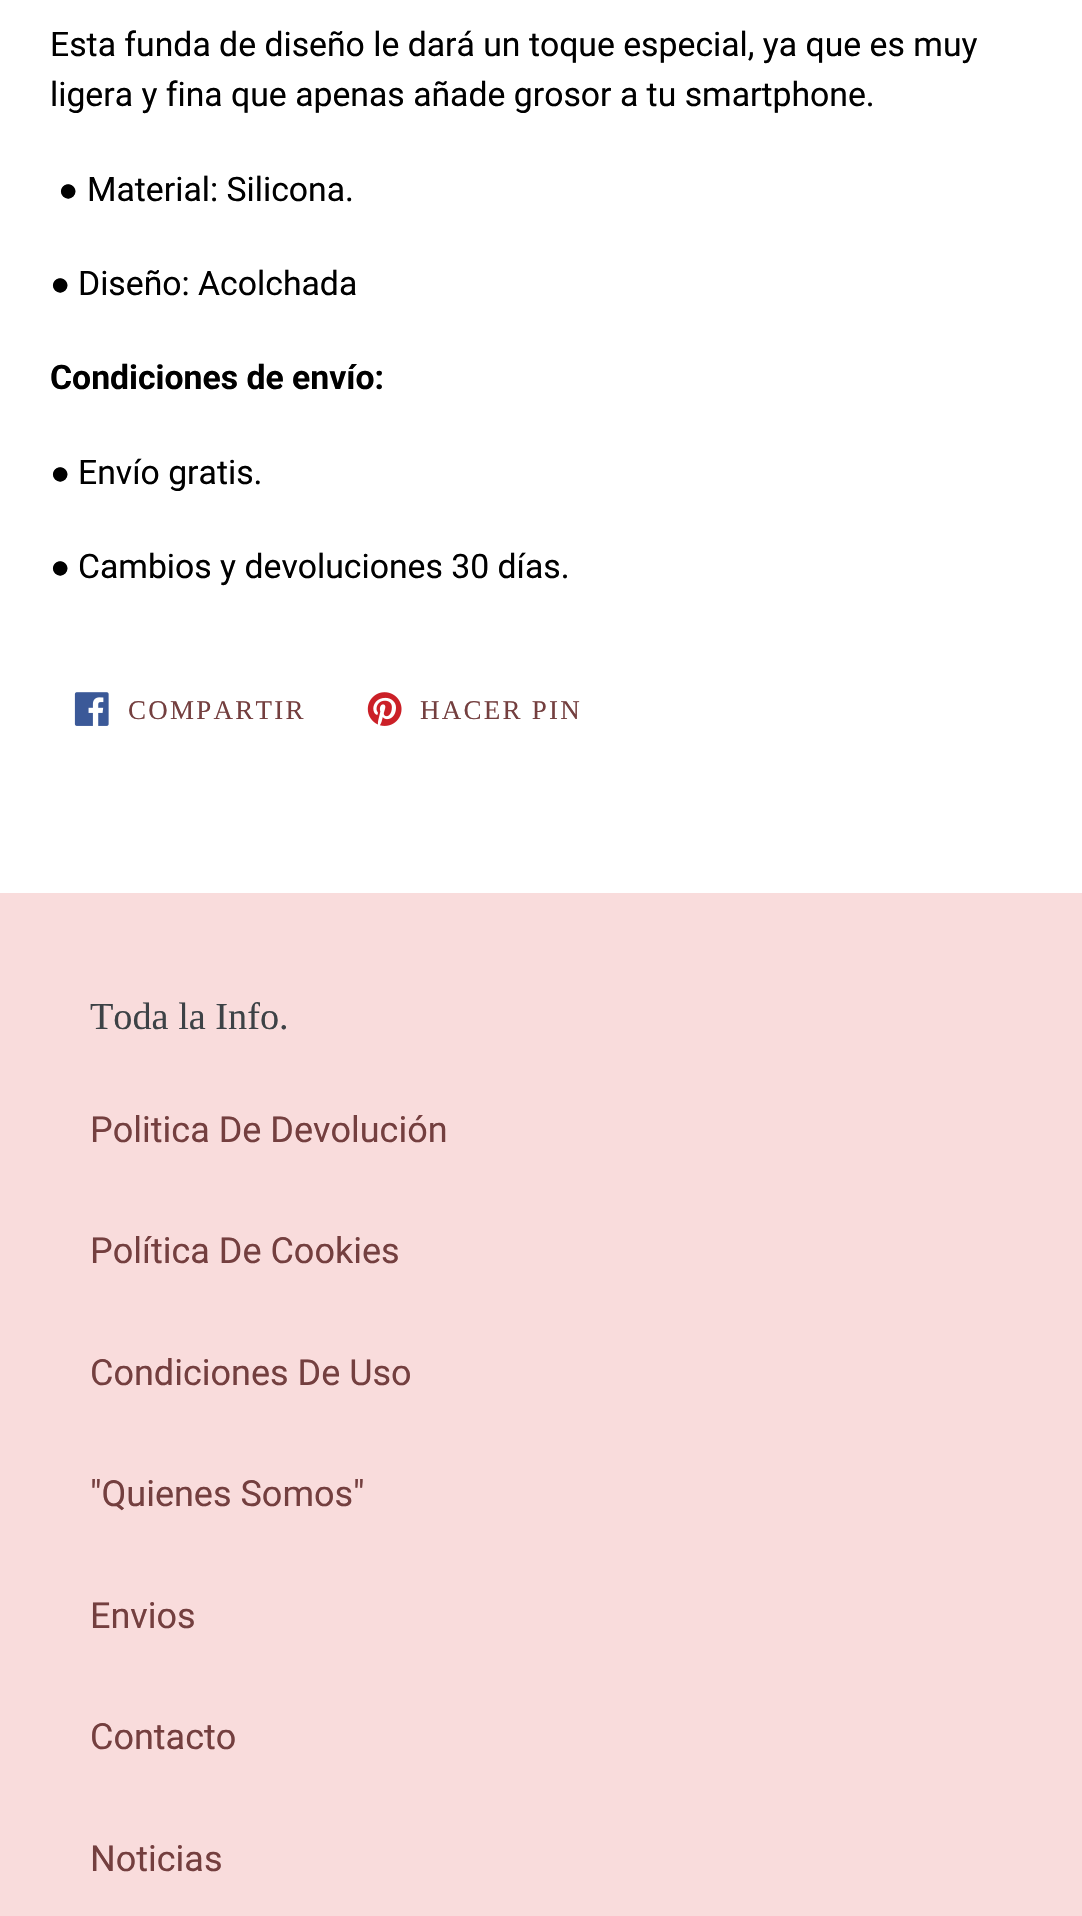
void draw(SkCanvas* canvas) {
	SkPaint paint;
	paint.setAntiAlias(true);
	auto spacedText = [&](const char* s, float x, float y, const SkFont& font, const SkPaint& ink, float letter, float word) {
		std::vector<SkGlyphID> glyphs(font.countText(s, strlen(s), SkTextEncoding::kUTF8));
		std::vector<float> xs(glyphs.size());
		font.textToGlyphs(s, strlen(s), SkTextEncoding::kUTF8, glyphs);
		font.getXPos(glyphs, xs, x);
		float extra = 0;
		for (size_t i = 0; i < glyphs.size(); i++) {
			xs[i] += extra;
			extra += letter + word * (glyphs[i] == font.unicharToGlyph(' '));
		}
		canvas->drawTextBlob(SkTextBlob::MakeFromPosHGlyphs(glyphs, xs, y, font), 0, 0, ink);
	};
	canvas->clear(0xffffffff);
	SkFont f1(fontMgr->matchFamilyStyle("Roboto", SkFontStyle::Normal()), 33.75);
	f1.setSubpixel(true);
	paint.setColor(0xff000000);
	canvas->drawString("Esta funda de diseño le dará un toque especial, ya que es muy", 50, 56, f1, paint);
	canvas->drawString("ligera y fina que apenas añade grosor a tu smartphone.", 50, 106, f1, paint);
	SkFont f2(fontMgr->matchFamilyStyle("Liberation Sans", SkFontStyle::Normal()), 33.75);
	f2.setSubpixel(true);
	canvas->drawString("●", 58, 201, f2, paint);
	canvas->drawString("Material: Silicona.", 87, 201, f1, paint);
	canvas->drawString("●", 50, 295, f2, paint);
	canvas->drawString("Diseño: Acolchada", 78, 295, f1, paint);
	SkFont f3(fontMgr->matchFamilyStyle("Roboto", SkFontStyle::Bold()), 33.75);
	f3.setSubpixel(true);
	canvas->drawString("Condiciones de envío:", 50, 389, f3, paint);
	canvas->drawString("●", 50, 484, f2, paint);
	canvas->drawString("Envío gratis.", 78, 484, f1, paint);
	canvas->drawString("●", 50, 578, f2, paint);
	canvas->drawString("Cambios y devoluciones 30 días.", 78, 578, f1, paint);
	canvas->drawImageRect(SkImages::DeferredFromEncodedData(SkData::MakeFromFileName("img1.png")), SkRect::MakeXYWH(74, 692, 35, 34), SkSamplingOptions());
	SkFont f4(fontMgr->matchFamilyStyle("Liberation Serif", SkFontStyle::Normal()), 27);
	f4.setSubpixel(true);
	paint.setColor(0xff743f3f);
	spacedText("COMPARTIR", 128, 719, f4, paint, 2.25, 0);
	canvas->drawImageRect(SkImages::DeferredFromEncodedData(SkData::MakeFromFileName("img2.png")), SkRect::MakeXYWH(367, 692, 35, 34), SkSamplingOptions());
	spacedText("HACER PIN", 420, 719, f4, paint, 2.25, 0);
	paint.setColor(0xfff9dcdc);
	canvas->drawRect(SkRect::MakeXYWH(0, 893, 1082, 1023), paint);
	SkFont f5(fontMgr->matchFamilyStyle("Liberation Serif", SkFontStyle::Normal()), 38.25);
	f5.setSubpixel(true);
	paint.setColor(0xff3d4246);
	canvas->drawString("Toda la Info.", 90, 1029, f5, paint);
	SkFont f6(fontMgr->matchFamilyStyle("Roboto", SkFontStyle::Normal()), 36);
	f6.setSubpixel(true);
	paint.setColor(0xff743f3f);
	canvas->drawString("Politica De Devolución", 90, 1142, f6, paint);
	canvas->drawString("Política De Cookies", 90, 1263, f6, paint);
	canvas->drawString("Condiciones De Uso", 90, 1385, f6, paint);
	canvas->drawString("\"Quienes Somos\"", 90, 1506, f6, paint);
	canvas->drawString("Envios", 90, 1628, f6, paint);
	canvas->drawString("Contacto", 90, 1749, f6, paint);
	canvas->drawString("Noticias", 90, 1871, f6, paint);
}
